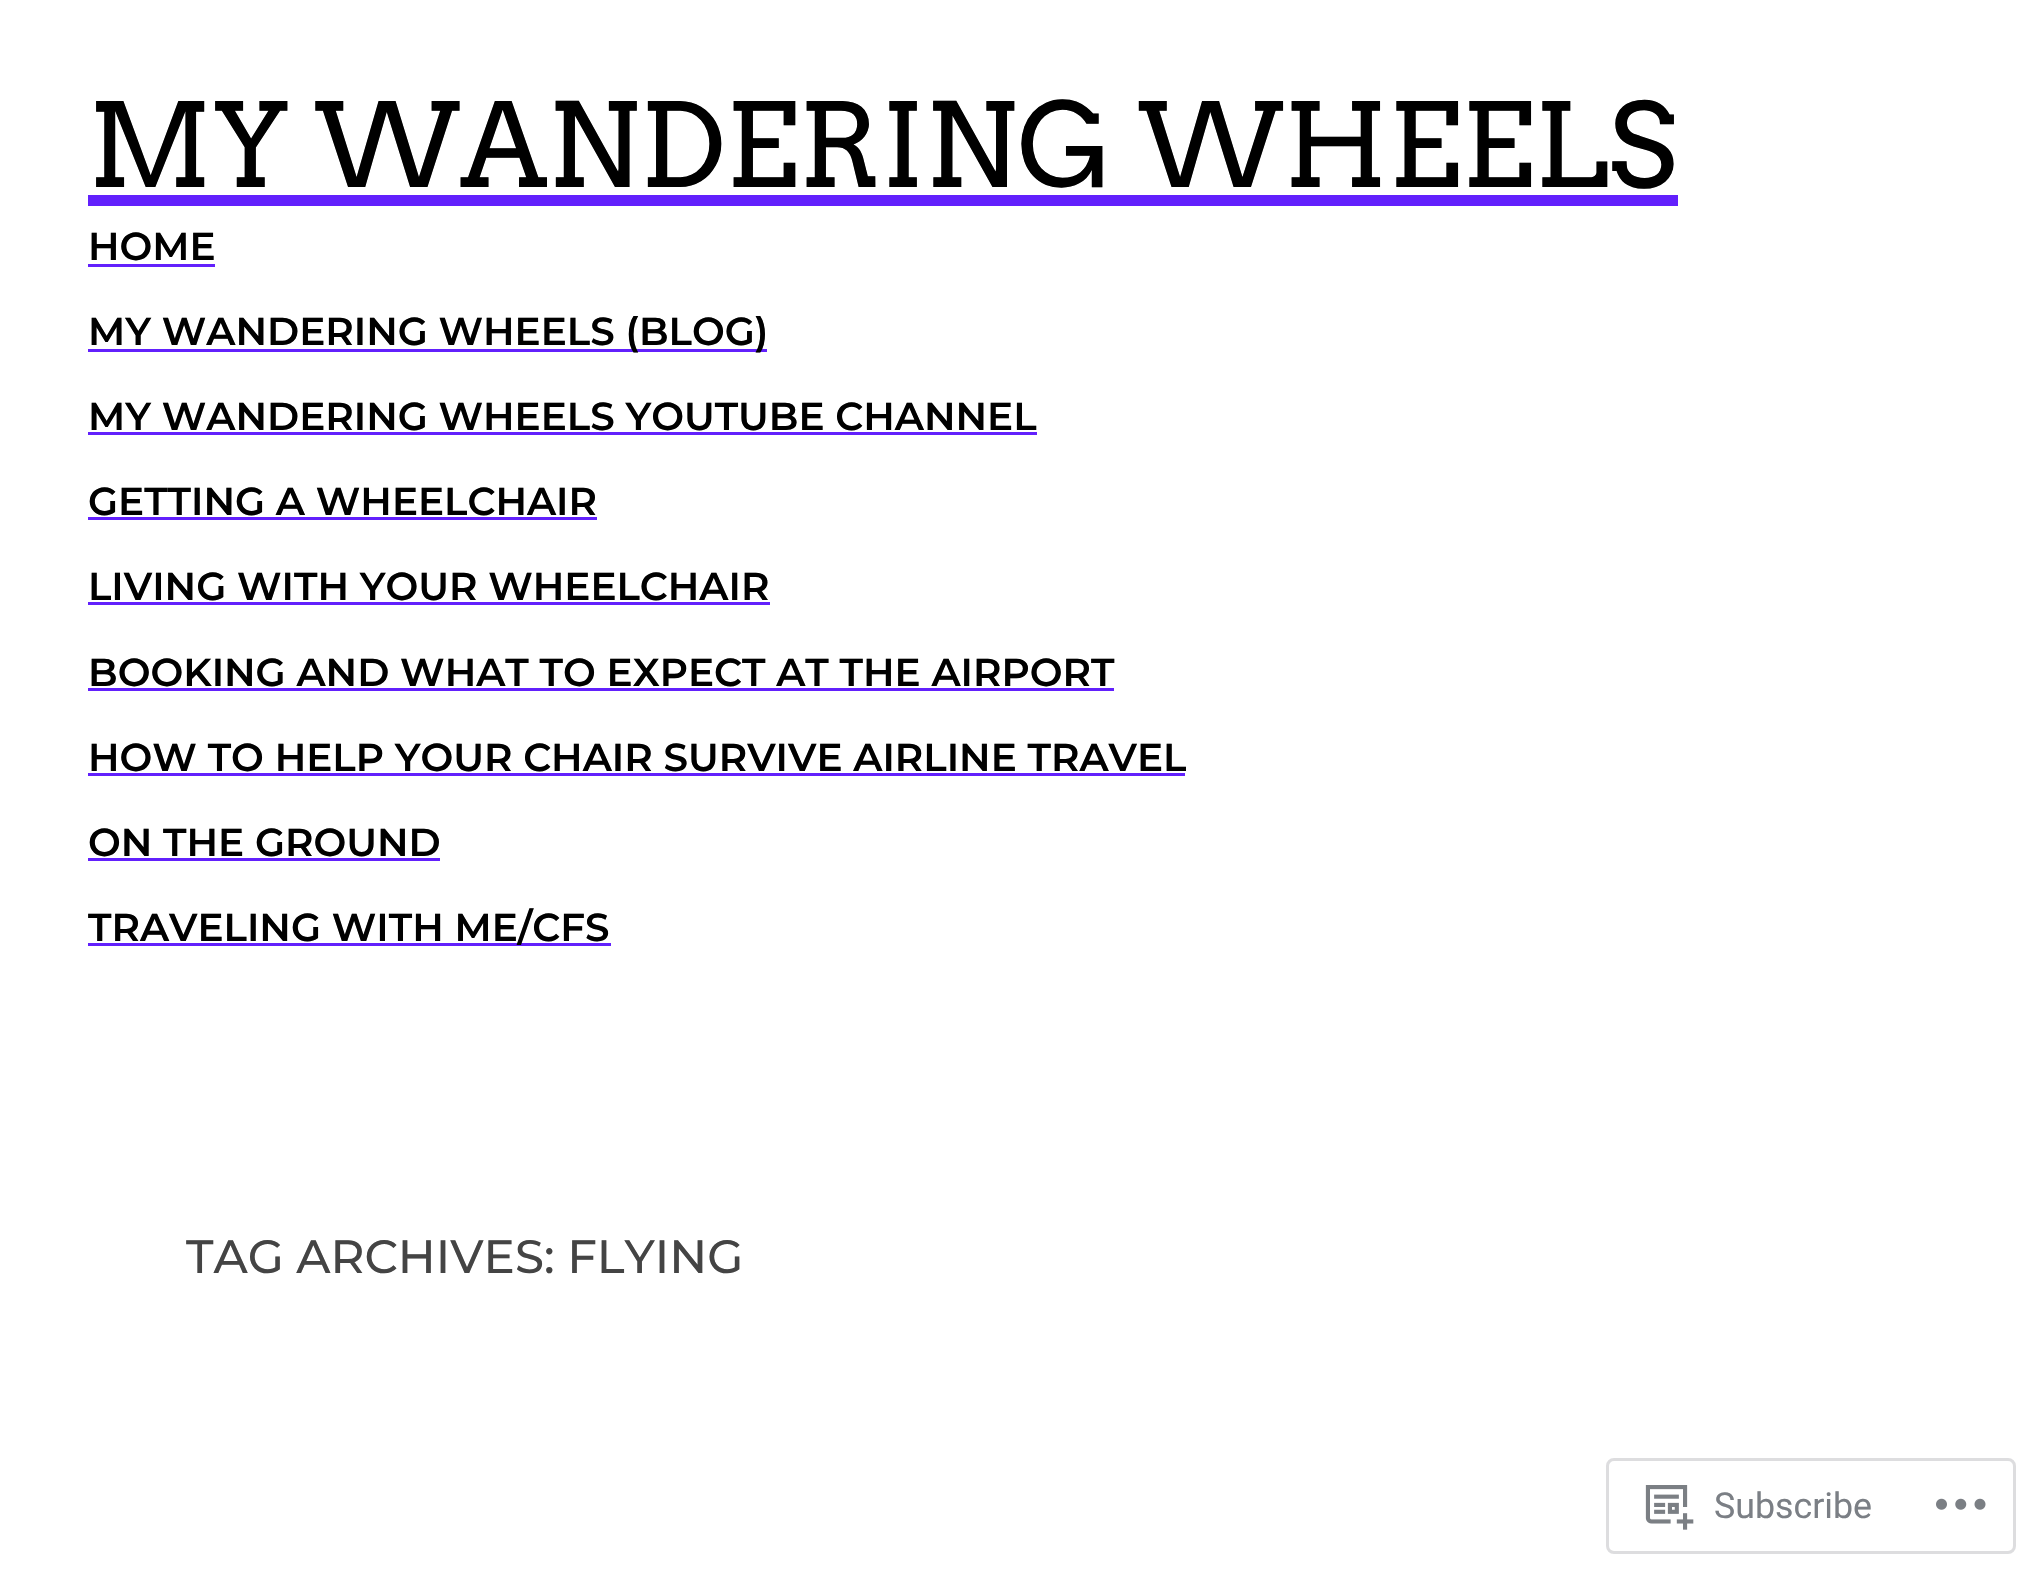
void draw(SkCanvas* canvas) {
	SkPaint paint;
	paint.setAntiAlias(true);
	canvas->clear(0xffffffff);
	SkFont f1(fontMgr->matchFamilyStyle("Arvo", SkFontStyle::Normal()), 116.3);
	f1.setSubpixel(true);
	paint.setColor(0xff000000);
	canvas->drawString("MY WANDERING WHEELS", 88, 187, f1, paint);
	paint.setColor(0xff6220fc);
	canvas->drawRect(SkRect::MakeXYWH(88, 195, 1590, 11), paint);
	SkFont f2(fontMgr->matchFamilyStyle("Montserrat", SkFontStyle(600, SkFontStyle::kNormal_Width, SkFontStyle::kUpright_Slant)), 38.95);
	f2.setSubpixel(true);
	paint.setColor(0xff000000);
	canvas->drawString("HOME", 88, 260, f2, paint);
	paint.setColor(0xff6220fc);
	canvas->drawRect(SkRect::MakeXYWH(88, 264, 127, 3), paint);
	canvas->drawRect(SkRect::MakeXYWH(88, 349, 679, 3), paint);
	paint.setColor(0xff000000);
	canvas->drawString("MY WANDERING WHEELS (BLOG)", 88, 345, f2, paint);
	canvas->drawString("MY WANDERING WHEELS YOUTUBE CHANNEL", 88, 430, f2, paint);
	paint.setColor(0xff6220fc);
	canvas->drawRect(SkRect::MakeXYWH(88, 432, 949, 3), paint);
	paint.setColor(0xff000000);
	canvas->drawString("GETTING A WHEELCHAIR", 88, 515, f2, paint);
	paint.setColor(0xff6220fc);
	canvas->drawRect(SkRect::MakeXYWH(88, 517, 509, 3), paint);
	paint.setColor(0xff000000);
	canvas->drawString("LIVING WITH YOUR WHEELCHAIR", 88, 600, f2, paint);
	paint.setColor(0xff6220fc);
	canvas->drawRect(SkRect::MakeXYWH(88, 602, 682, 3), paint);
	paint.setColor(0xff000000);
	canvas->drawString("BOOKING AND WHAT TO EXPECT AT THE AIRPORT", 88, 686, f2, paint);
	paint.setColor(0xff6220fc);
	canvas->drawRect(SkRect::MakeXYWH(88, 688, 1026, 3), paint);
	paint.setColor(0xff000000);
	canvas->drawString("HOW TO HELP YOUR CHAIR SURVIVE AIRLINE TRAVEL", 88, 771, f2, paint);
	paint.setColor(0xff6220fc);
	canvas->drawRect(SkRect::MakeXYWH(88, 773, 1097, 3), paint);
	paint.setColor(0xff000000);
	canvas->drawString("ON THE GROUND", 88, 856, f2, paint);
	paint.setColor(0xff6220fc);
	canvas->drawRect(SkRect::MakeXYWH(88, 858, 352, 3), paint);
	canvas->drawRect(SkRect::MakeXYWH(88, 943, 523, 3), paint);
	paint.setColor(0xff000000);
	canvas->drawString("TRAVELING WITH ME/CFS", 88, 941, f2, paint);
	SkFont f3(fontMgr->matchFamilyStyle("Montserrat", SkFontStyle(500, SkFontStyle::kNormal_Width, SkFontStyle::kUpright_Slant)), 46.75);
	f3.setSubpixel(true);
	paint.setColor(0xff444444);
	canvas->drawString("TAG ARCHIVES: FLYING", 186, 1273, f3, paint);
	paint.setStroke(true);
	paint.setStrokeWidth(3);
	paint.setColor(0xffdddddf);
	canvas->drawRoundRect(SkRect::MakeXYWH(1607.5, 1459.5, 407, 93), 6.5, 6.5, paint);
	canvas->drawImageRect(SkImages::DeferredFromEncodedData(SkData::MakeFromFileName("img1.png")), SkRect::MakeXYWH(1645, 1485, 49, 45), SkSamplingOptions());
	SkFont f4(fontMgr->matchFamilyStyle("Roboto", SkFontStyle::Normal()), 35.75);
	f4.setSubpixel(true);
	paint.setStroke(false);
	paint.setColor(0xff7b7f85);
	canvas->drawString("Subscribe", 1714, 1518, f4, paint);
	canvas->drawImageRect(SkImages::DeferredFromEncodedData(SkData::MakeFromFileName("img2.png")), SkRect::MakeXYWH(1936, 1498, 50, 12), SkSamplingOptions());
}
